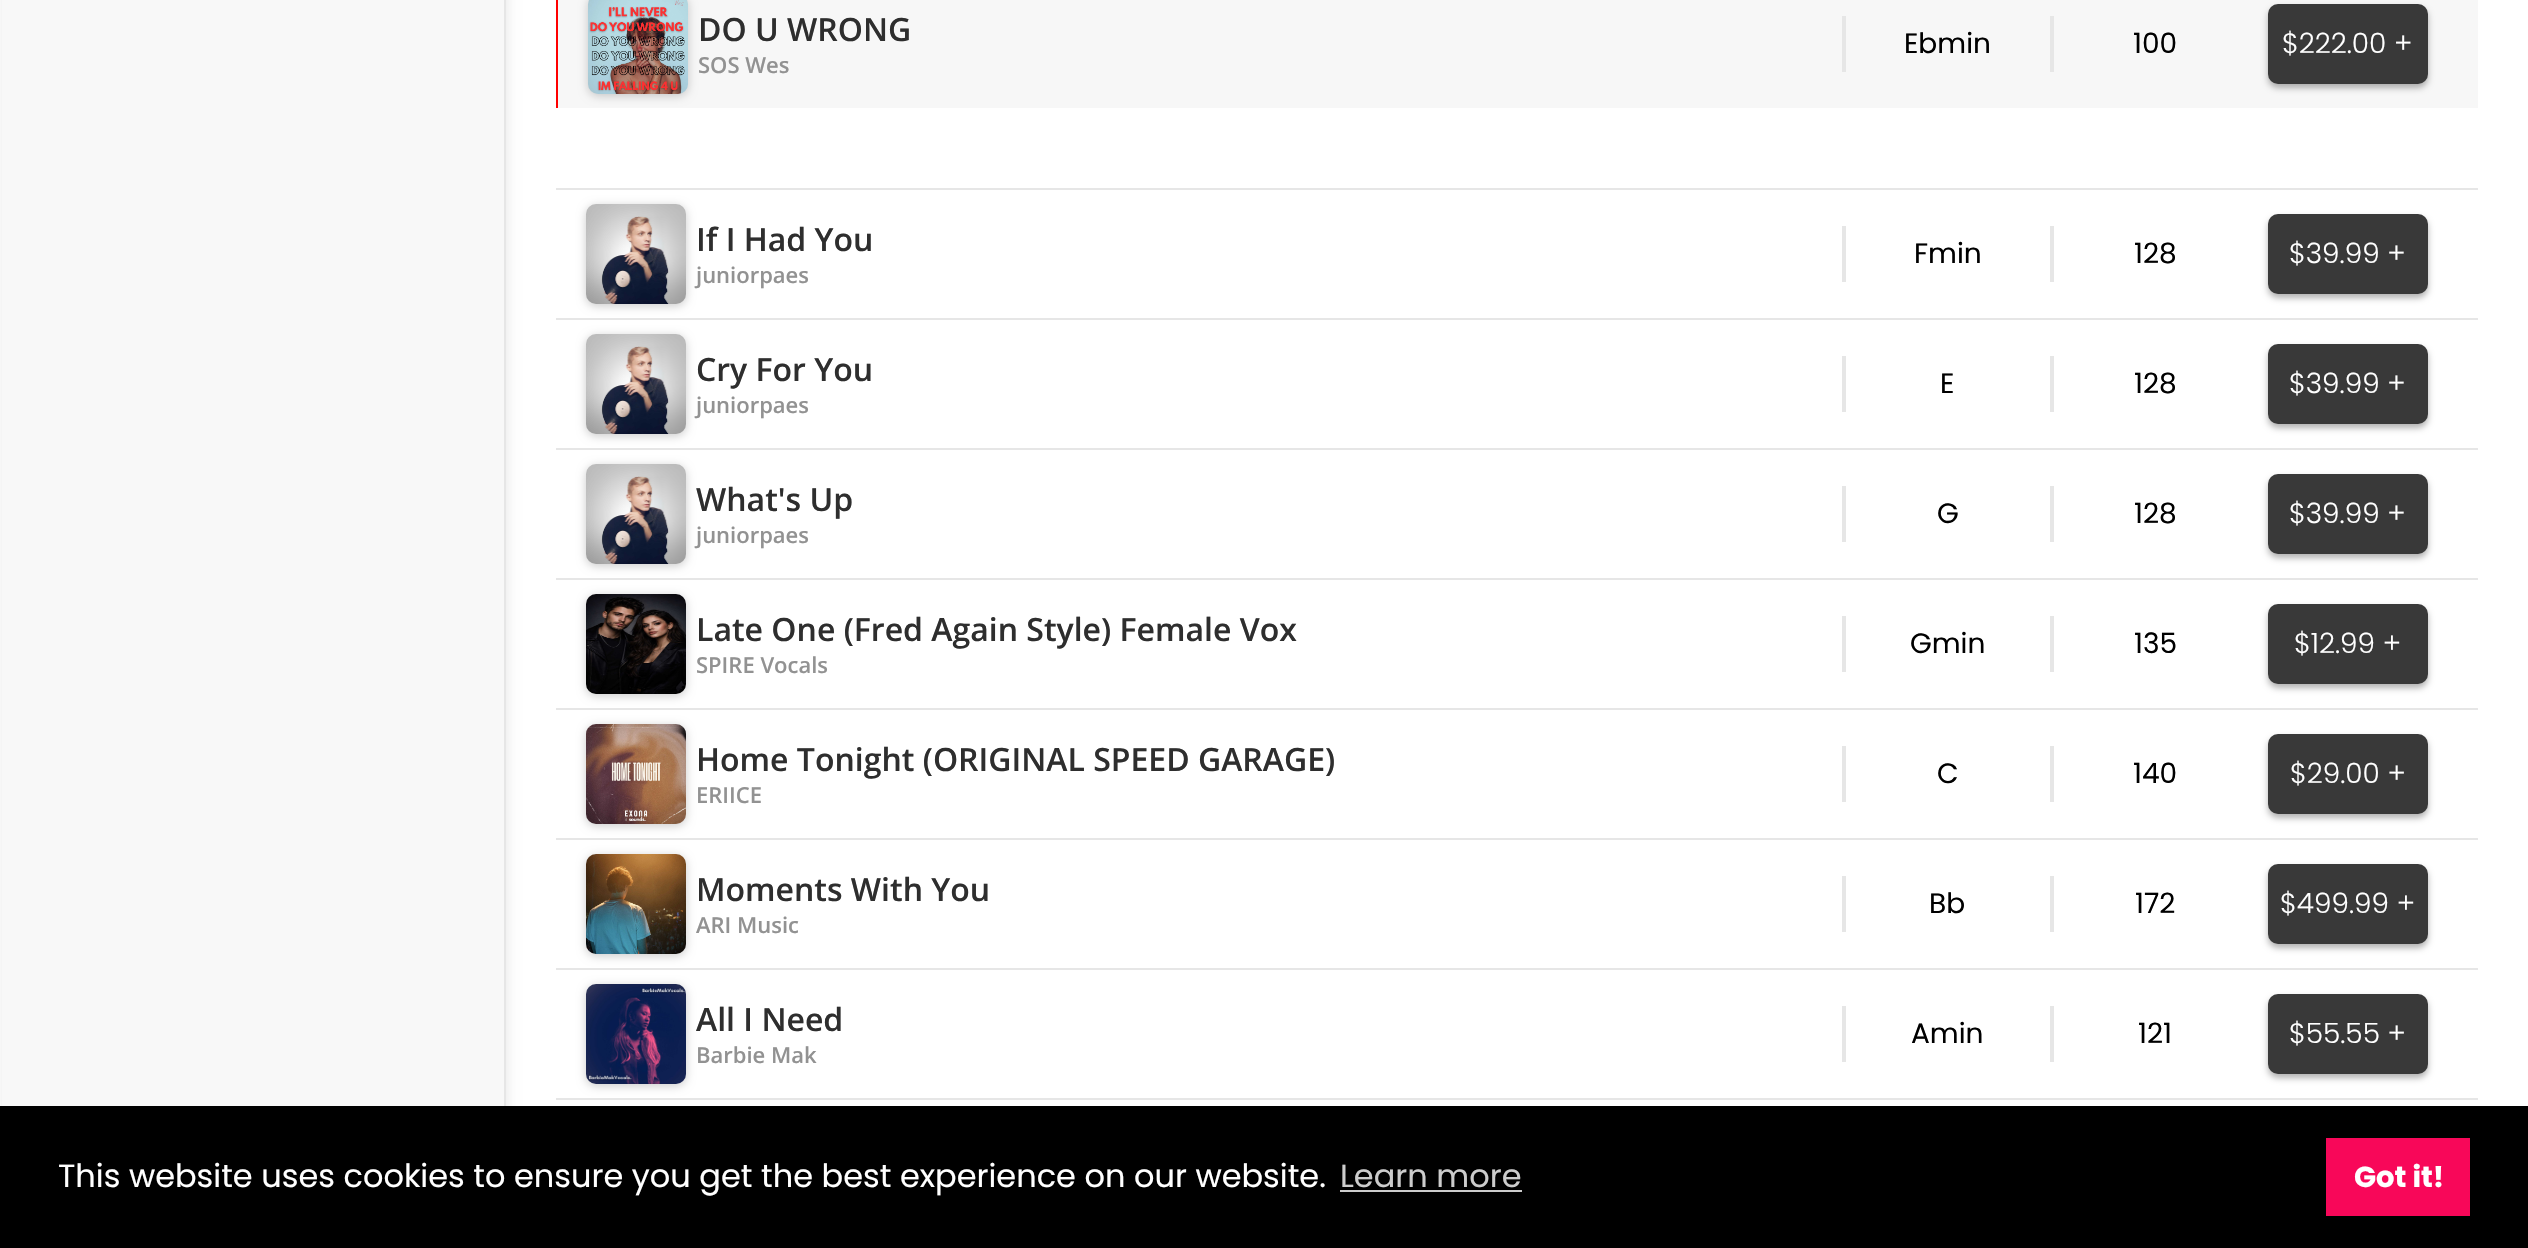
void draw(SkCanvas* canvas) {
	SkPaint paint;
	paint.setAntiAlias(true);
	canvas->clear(0xffffffff);
	paint.setColor(0x14000000);
	paint.setMaskFilter(SkMaskFilter::MakeBlur(kNormal_SkBlurStyle, 5));
	canvas->drawRect(SkRect::MakeXYWH(2, -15, 506, 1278), paint);
	paint.setMaskFilter(nullptr);
	paint.setColor(0xfff8f8f8);
	canvas->drawRect(SkRect::MakeXYWH(2, 0, 502, 1106), paint);
	paint.setColor(0xffe6e6e6);
	canvas->drawRect(SkRect::MakeXYWH(504, 0, 2, 1106), paint);
	paint.setColor(0xfff7f7f7);
	canvas->drawRect(SkRect::MakeXYWH(558, 0, 1920, 108), paint);
	paint.setColor(0xffff0000);
	canvas->drawRect(SkRect::MakeXYWH(556, 0, 2, 108), paint);
	paint.setColor(0x33000000);
	paint.setMaskFilter(SkMaskFilter::MakeBlur(kNormal_SkBlurStyle, 5));
	canvas->drawRoundRect(SkRect::MakeXYWH(588, -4, 100, 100), 10, 10, paint);
	paint.setMaskFilter(nullptr);
	canvas->drawImageRect(SkImages::DeferredFromEncodedData(SkData::MakeFromFileName("img1.png")), SkRect::MakeXYWH(588, 0, 100, 94), SkSamplingOptions());
	SkFont f1(fontMgr->matchFamilyStyle("Open Sans", SkFontStyle(600, SkFontStyle::kNormal_Width, SkFontStyle::kUpright_Slant)), 32);
	f1.setSubpixel(true);
	paint.setColor(0xff2e2e2e);
	canvas->drawString("DO U WRONG", 698, 41, f1, paint);
	SkFont f2(fontMgr->matchFamilyStyle("Open Sans", SkFontStyle(600, SkFontStyle::kNormal_Width, SkFontStyle::kUpright_Slant)), 22);
	f2.setSubpixel(true);
	paint.setColor(0xff929292);
	canvas->drawString("SOS Wes", 698, 73, f2, paint);
	paint.setColor(0xffe6e6e6);
	canvas->drawRect(SkRect::MakeXYWH(1842, 16, 4, 56), paint);
	SkFont f3(fontMgr->matchFamilyStyle("Poppins", SkFontStyle::Normal()), 28);
	f3.setSubpixel(true);
	paint.setColor(0xff000000);
	canvas->drawString("Ebmin", 1904, 53, f3, paint);
	paint.setColor(0xffe6e6e6);
	canvas->drawRect(SkRect::MakeXYWH(2050, 16, 4, 56), paint);
	paint.setColor(0xff000000);
	canvas->drawString("100", 2133, 53, f3, paint);
	paint.setColor(0x4d000000);
	paint.setMaskFilter(SkMaskFilter::MakeBlur(kNormal_SkBlurStyle, 3));
	canvas->drawRoundRect(SkRect::MakeXYWH(2268, 8, 160, 80), 10, 10, paint);
	paint.setMaskFilter(nullptr);
	paint.setColor(0xff393939);
	canvas->drawRoundRect(SkRect::MakeXYWH(2268, 4, 160, 80), 10, 10, paint);
	SkFont f4(fontMgr->matchFamilyStyle("Poppins", SkFontStyle(300, SkFontStyle::kNormal_Width, SkFontStyle::kUpright_Slant)), 28);
	f4.setSubpixel(true);
	paint.setColor(0xffffffff);
	canvas->drawString("$222.00 +", 2282, 53, f4, paint);
	paint.setColor(0xffe6e6e6);
	canvas->drawRect(SkRect::MakeXYWH(556, 188, 1922, 2), paint);
	canvas->drawRect(SkRect::MakeXYWH(556, 318, 1922, 2), paint);
	paint.setColor(0x33000000);
	paint.setMaskFilter(SkMaskFilter::MakeBlur(kNormal_SkBlurStyle, 5));
	canvas->drawRoundRect(SkRect::MakeXYWH(586, 206, 100, 100), 10, 10, paint);
	paint.setMaskFilter(nullptr);
	canvas->drawImageRect(SkImages::DeferredFromEncodedData(SkData::MakeFromFileName("img2.png")), SkRect::MakeXYWH(586, 204, 100, 100), SkSamplingOptions());
	paint.setColor(0xff2e2e2e);
	canvas->drawString("If I Had You", 696, 251, f1, paint);
	paint.setColor(0xff929292);
	canvas->drawString("juniorpaes", 696, 283, f2, paint);
	paint.setColor(0xffe6e6e6);
	canvas->drawRect(SkRect::MakeXYWH(1842, 226, 4, 56), paint);
	paint.setColor(0xff000000);
	canvas->drawString("Fmin", 1914, 263, f3, paint);
	paint.setColor(0xffe6e6e6);
	canvas->drawRect(SkRect::MakeXYWH(2050, 226, 4, 56), paint);
	paint.setColor(0xff000000);
	canvas->drawString("128", 2134, 263, f3, paint);
	paint.setColor(0x4d000000);
	paint.setMaskFilter(SkMaskFilter::MakeBlur(kNormal_SkBlurStyle, 3));
	canvas->drawRoundRect(SkRect::MakeXYWH(2268, 218, 160, 80), 10, 10, paint);
	paint.setMaskFilter(nullptr);
	paint.setColor(0xff393939);
	canvas->drawRoundRect(SkRect::MakeXYWH(2268, 214, 160, 80), 10, 10, paint);
	paint.setColor(0xffffffff);
	canvas->drawString("$39.99 +", 2289, 263, f4, paint);
	paint.setColor(0xffe6e6e6);
	canvas->drawRect(SkRect::MakeXYWH(556, 448, 1922, 2), paint);
	paint.setColor(0x33000000);
	paint.setMaskFilter(SkMaskFilter::MakeBlur(kNormal_SkBlurStyle, 5));
	canvas->drawRoundRect(SkRect::MakeXYWH(586, 336, 100, 100), 10, 10, paint);
	paint.setMaskFilter(nullptr);
	canvas->drawImageRect(SkImages::DeferredFromEncodedData(SkData::MakeFromFileName("img2.png")), SkRect::MakeXYWH(586, 334, 100, 100), SkSamplingOptions());
	paint.setColor(0xff2e2e2e);
	canvas->drawString("Cry For You", 696, 381, f1, paint);
	paint.setColor(0xff929292);
	canvas->drawString("juniorpaes", 696, 413, f2, paint);
	paint.setColor(0xffe6e6e6);
	canvas->drawRect(SkRect::MakeXYWH(1842, 356, 4, 56), paint);
	paint.setColor(0xff000000);
	canvas->drawString("E", 1940, 393, f3, paint);
	paint.setColor(0xffe6e6e6);
	canvas->drawRect(SkRect::MakeXYWH(2050, 356, 4, 56), paint);
	paint.setColor(0xff000000);
	canvas->drawString("128", 2134, 393, f3, paint);
	paint.setColor(0x4d000000);
	paint.setMaskFilter(SkMaskFilter::MakeBlur(kNormal_SkBlurStyle, 3));
	canvas->drawRoundRect(SkRect::MakeXYWH(2268, 348, 160, 80), 10, 10, paint);
	paint.setMaskFilter(nullptr);
	paint.setColor(0xff393939);
	canvas->drawRoundRect(SkRect::MakeXYWH(2268, 344, 160, 80), 10, 10, paint);
	paint.setColor(0xffffffff);
	canvas->drawString("$39.99 +", 2289, 393, f4, paint);
	paint.setColor(0xffe6e6e6);
	canvas->drawRect(SkRect::MakeXYWH(556, 578, 1922, 2), paint);
	paint.setColor(0x33000000);
	paint.setMaskFilter(SkMaskFilter::MakeBlur(kNormal_SkBlurStyle, 5));
	canvas->drawRoundRect(SkRect::MakeXYWH(586, 466, 100, 100), 10, 10, paint);
	paint.setMaskFilter(nullptr);
	canvas->drawImageRect(SkImages::DeferredFromEncodedData(SkData::MakeFromFileName("img2.png")), SkRect::MakeXYWH(586, 464, 100, 100), SkSamplingOptions());
	paint.setColor(0xff2e2e2e);
	canvas->drawString("What's Up", 696, 511, f1, paint);
	paint.setColor(0xff929292);
	canvas->drawString("juniorpaes", 696, 543, f2, paint);
	paint.setColor(0xffe6e6e6);
	canvas->drawRect(SkRect::MakeXYWH(1842, 486, 4, 56), paint);
	paint.setColor(0xff000000);
	canvas->drawString("G", 1937, 523, f3, paint);
	paint.setColor(0xffe6e6e6);
	canvas->drawRect(SkRect::MakeXYWH(2050, 486, 4, 56), paint);
	paint.setColor(0xff000000);
	canvas->drawString("128", 2134, 523, f3, paint);
	paint.setColor(0x4d000000);
	paint.setMaskFilter(SkMaskFilter::MakeBlur(kNormal_SkBlurStyle, 3));
	canvas->drawRoundRect(SkRect::MakeXYWH(2268, 478, 160, 80), 10, 10, paint);
	paint.setMaskFilter(nullptr);
	paint.setColor(0xff393939);
	canvas->drawRoundRect(SkRect::MakeXYWH(2268, 474, 160, 80), 10, 10, paint);
	paint.setColor(0xffffffff);
	canvas->drawString("$39.99 +", 2289, 523, f4, paint);
	paint.setColor(0xffe6e6e6);
	canvas->drawRect(SkRect::MakeXYWH(556, 708, 1922, 2), paint);
	paint.setColor(0x33000000);
	paint.setMaskFilter(SkMaskFilter::MakeBlur(kNormal_SkBlurStyle, 5));
	canvas->drawRoundRect(SkRect::MakeXYWH(586, 596, 100, 100), 10, 10, paint);
	paint.setMaskFilter(nullptr);
	canvas->drawImageRect(SkImages::DeferredFromEncodedData(SkData::MakeFromFileName("img3.png")), SkRect::MakeXYWH(586, 594, 100, 100), SkSamplingOptions());
	paint.setColor(0xff2e2e2e);
	canvas->drawString("Late One (Fred Again Style) Female Vox", 696, 641, f1, paint);
	paint.setColor(0xff929292);
	canvas->drawString("SPIRE Vocals", 696, 673, f2, paint);
	paint.setColor(0xffe6e6e6);
	canvas->drawRect(SkRect::MakeXYWH(1842, 616, 4, 56), paint);
	paint.setColor(0xff000000);
	canvas->drawString("Gmin", 1910, 653, f3, paint);
	paint.setColor(0xffe6e6e6);
	canvas->drawRect(SkRect::MakeXYWH(2050, 616, 4, 56), paint);
	paint.setColor(0xff000000);
	canvas->drawString("135", 2134, 653, f3, paint);
	paint.setColor(0x4d000000);
	paint.setMaskFilter(SkMaskFilter::MakeBlur(kNormal_SkBlurStyle, 3));
	canvas->drawRoundRect(SkRect::MakeXYWH(2268, 608, 160, 80), 10, 10, paint);
	paint.setMaskFilter(nullptr);
	paint.setColor(0xff393939);
	canvas->drawRoundRect(SkRect::MakeXYWH(2268, 604, 160, 80), 10, 10, paint);
	paint.setColor(0xffffffff);
	canvas->drawString("$12.99 +", 2294, 653, f4, paint);
	paint.setColor(0xffe6e6e6);
	canvas->drawRect(SkRect::MakeXYWH(556, 838, 1922, 2), paint);
	paint.setColor(0x33000000);
	paint.setMaskFilter(SkMaskFilter::MakeBlur(kNormal_SkBlurStyle, 5));
	canvas->drawRoundRect(SkRect::MakeXYWH(586, 726, 100, 100), 10, 10, paint);
	paint.setMaskFilter(nullptr);
	canvas->drawImageRect(SkImages::DeferredFromEncodedData(SkData::MakeFromFileName("img4.png")), SkRect::MakeXYWH(586, 724, 100, 100), SkSamplingOptions());
	paint.setColor(0xff2e2e2e);
	canvas->drawString("Home Tonight (ORIGINAL SPEED GARAGE)", 696, 771, f1, paint);
	paint.setColor(0xff929292);
	canvas->drawString("ERIICE", 696, 803, f2, paint);
	paint.setColor(0xffe6e6e6);
	canvas->drawRect(SkRect::MakeXYWH(1842, 746, 4, 56), paint);
	paint.setColor(0xff000000);
	canvas->drawString("C", 1937, 783, f3, paint);
	paint.setColor(0xffe6e6e6);
	canvas->drawRect(SkRect::MakeXYWH(2050, 746, 4, 56), paint);
	paint.setColor(0xff000000);
	canvas->drawString("140", 2133, 783, f3, paint);
	paint.setColor(0x4d000000);
	paint.setMaskFilter(SkMaskFilter::MakeBlur(kNormal_SkBlurStyle, 3));
	canvas->drawRoundRect(SkRect::MakeXYWH(2268, 738, 160, 80), 10, 10, paint);
	paint.setMaskFilter(nullptr);
	paint.setColor(0xff393939);
	canvas->drawRoundRect(SkRect::MakeXYWH(2268, 734, 160, 80), 10, 10, paint);
	paint.setColor(0xffffffff);
	canvas->drawString("$29.00 +", 2290, 783, f4, paint);
	paint.setColor(0xffe6e6e6);
	canvas->drawRect(SkRect::MakeXYWH(556, 968, 1922, 2), paint);
	paint.setColor(0x33000000);
	paint.setMaskFilter(SkMaskFilter::MakeBlur(kNormal_SkBlurStyle, 5));
	canvas->drawRoundRect(SkRect::MakeXYWH(586, 856, 100, 100), 10, 10, paint);
	paint.setMaskFilter(nullptr);
	canvas->drawImageRect(SkImages::DeferredFromEncodedData(SkData::MakeFromFileName("img5.png")), SkRect::MakeXYWH(586, 854, 100, 100), SkSamplingOptions());
	paint.setColor(0xff2e2e2e);
	canvas->drawString("Moments With You", 696, 901, f1, paint);
	paint.setColor(0xff929292);
	canvas->drawString("ARI Music", 696, 933, f2, paint);
	paint.setColor(0xffe6e6e6);
	canvas->drawRect(SkRect::MakeXYWH(1842, 876, 4, 56), paint);
	paint.setColor(0xff000000);
	canvas->drawString("Bb", 1929, 913, f3, paint);
	paint.setColor(0xffe6e6e6);
	canvas->drawRect(SkRect::MakeXYWH(2050, 876, 4, 56), paint);
	paint.setColor(0xff000000);
	canvas->drawString("172", 2135, 913, f3, paint);
	paint.setColor(0x4d000000);
	paint.setMaskFilter(SkMaskFilter::MakeBlur(kNormal_SkBlurStyle, 3));
	canvas->drawRoundRect(SkRect::MakeXYWH(2268, 868, 160, 80), 10, 10, paint);
	paint.setMaskFilter(nullptr);
	paint.setColor(0xff393939);
	canvas->drawRoundRect(SkRect::MakeXYWH(2268, 864, 160, 80), 10, 10, paint);
	paint.setColor(0xffffffff);
	canvas->drawString("$499.99 +", 2280, 913, f4, paint);
	paint.setColor(0xffe6e6e6);
	canvas->drawRect(SkRect::MakeXYWH(556, 1098, 1922, 2), paint);
	paint.setColor(0x33000000);
	paint.setMaskFilter(SkMaskFilter::MakeBlur(kNormal_SkBlurStyle, 5));
	canvas->drawRoundRect(SkRect::MakeXYWH(586, 986, 100, 100), 10, 10, paint);
	paint.setMaskFilter(nullptr);
	canvas->drawImageRect(SkImages::DeferredFromEncodedData(SkData::MakeFromFileName("img6.png")), SkRect::MakeXYWH(586, 984, 100, 100), SkSamplingOptions());
	paint.setColor(0xff2e2e2e);
	canvas->drawString("All I Need", 696, 1031, f1, paint);
	paint.setColor(0xff929292);
	canvas->drawString("Barbie Mak", 696, 1063, f2, paint);
	paint.setColor(0xffe6e6e6);
	canvas->drawRect(SkRect::MakeXYWH(1842, 1006, 4, 56), paint);
	paint.setColor(0xff000000);
	canvas->drawString("Amin", 1911, 1043, f3, paint);
	paint.setColor(0xffe6e6e6);
	canvas->drawRect(SkRect::MakeXYWH(2050, 1006, 4, 56), paint);
	paint.setColor(0xff000000);
	canvas->drawString("121", 2138, 1043, f3, paint);
	paint.setColor(0x4d000000);
	paint.setMaskFilter(SkMaskFilter::MakeBlur(kNormal_SkBlurStyle, 3));
	canvas->drawRoundRect(SkRect::MakeXYWH(2268, 998, 160, 80), 10, 10, paint);
	paint.setMaskFilter(nullptr);
	paint.setColor(0xff393939);
	canvas->drawRoundRect(SkRect::MakeXYWH(2268, 994, 160, 80), 10, 10, paint);
	paint.setColor(0xffffffff);
	canvas->drawString("$55.55 +", 2289, 1043, f4, paint);
	paint.setColor(0xff000000);
	canvas->drawRect(SkRect::MakeXYWH(0, 1106, 2528, 142), paint);
	SkFont f5(fontMgr->matchFamilyStyle("Poppins", SkFontStyle::Normal()), 32);
	f5.setSubpixel(true);
	paint.setColor(0xffffffff);
	canvas->drawString("This website uses cookies to ensure you get the best experience on our website.", 58, 1187, f5, paint);
	paint.setColor(0xffcccccc);
	canvas->drawString("Learn more", 1340, 1187, f5, paint);
	canvas->drawRect(SkRect::MakeXYWH(1340, 1190, 182, 2), paint);
	paint.setColor(0xfff80759);
	canvas->drawRect(SkRect::MakeXYWH(2326, 1138, 144, 78), paint);
	SkFont f6(fontMgr->matchFamilyStyle("Poppins", SkFontStyle::Bold()), 29);
	f6.setSubpixel(true);
	paint.setColor(0xffffffff);
	canvas->drawString("Got it!", 2354, 1187, f6, paint);
}
